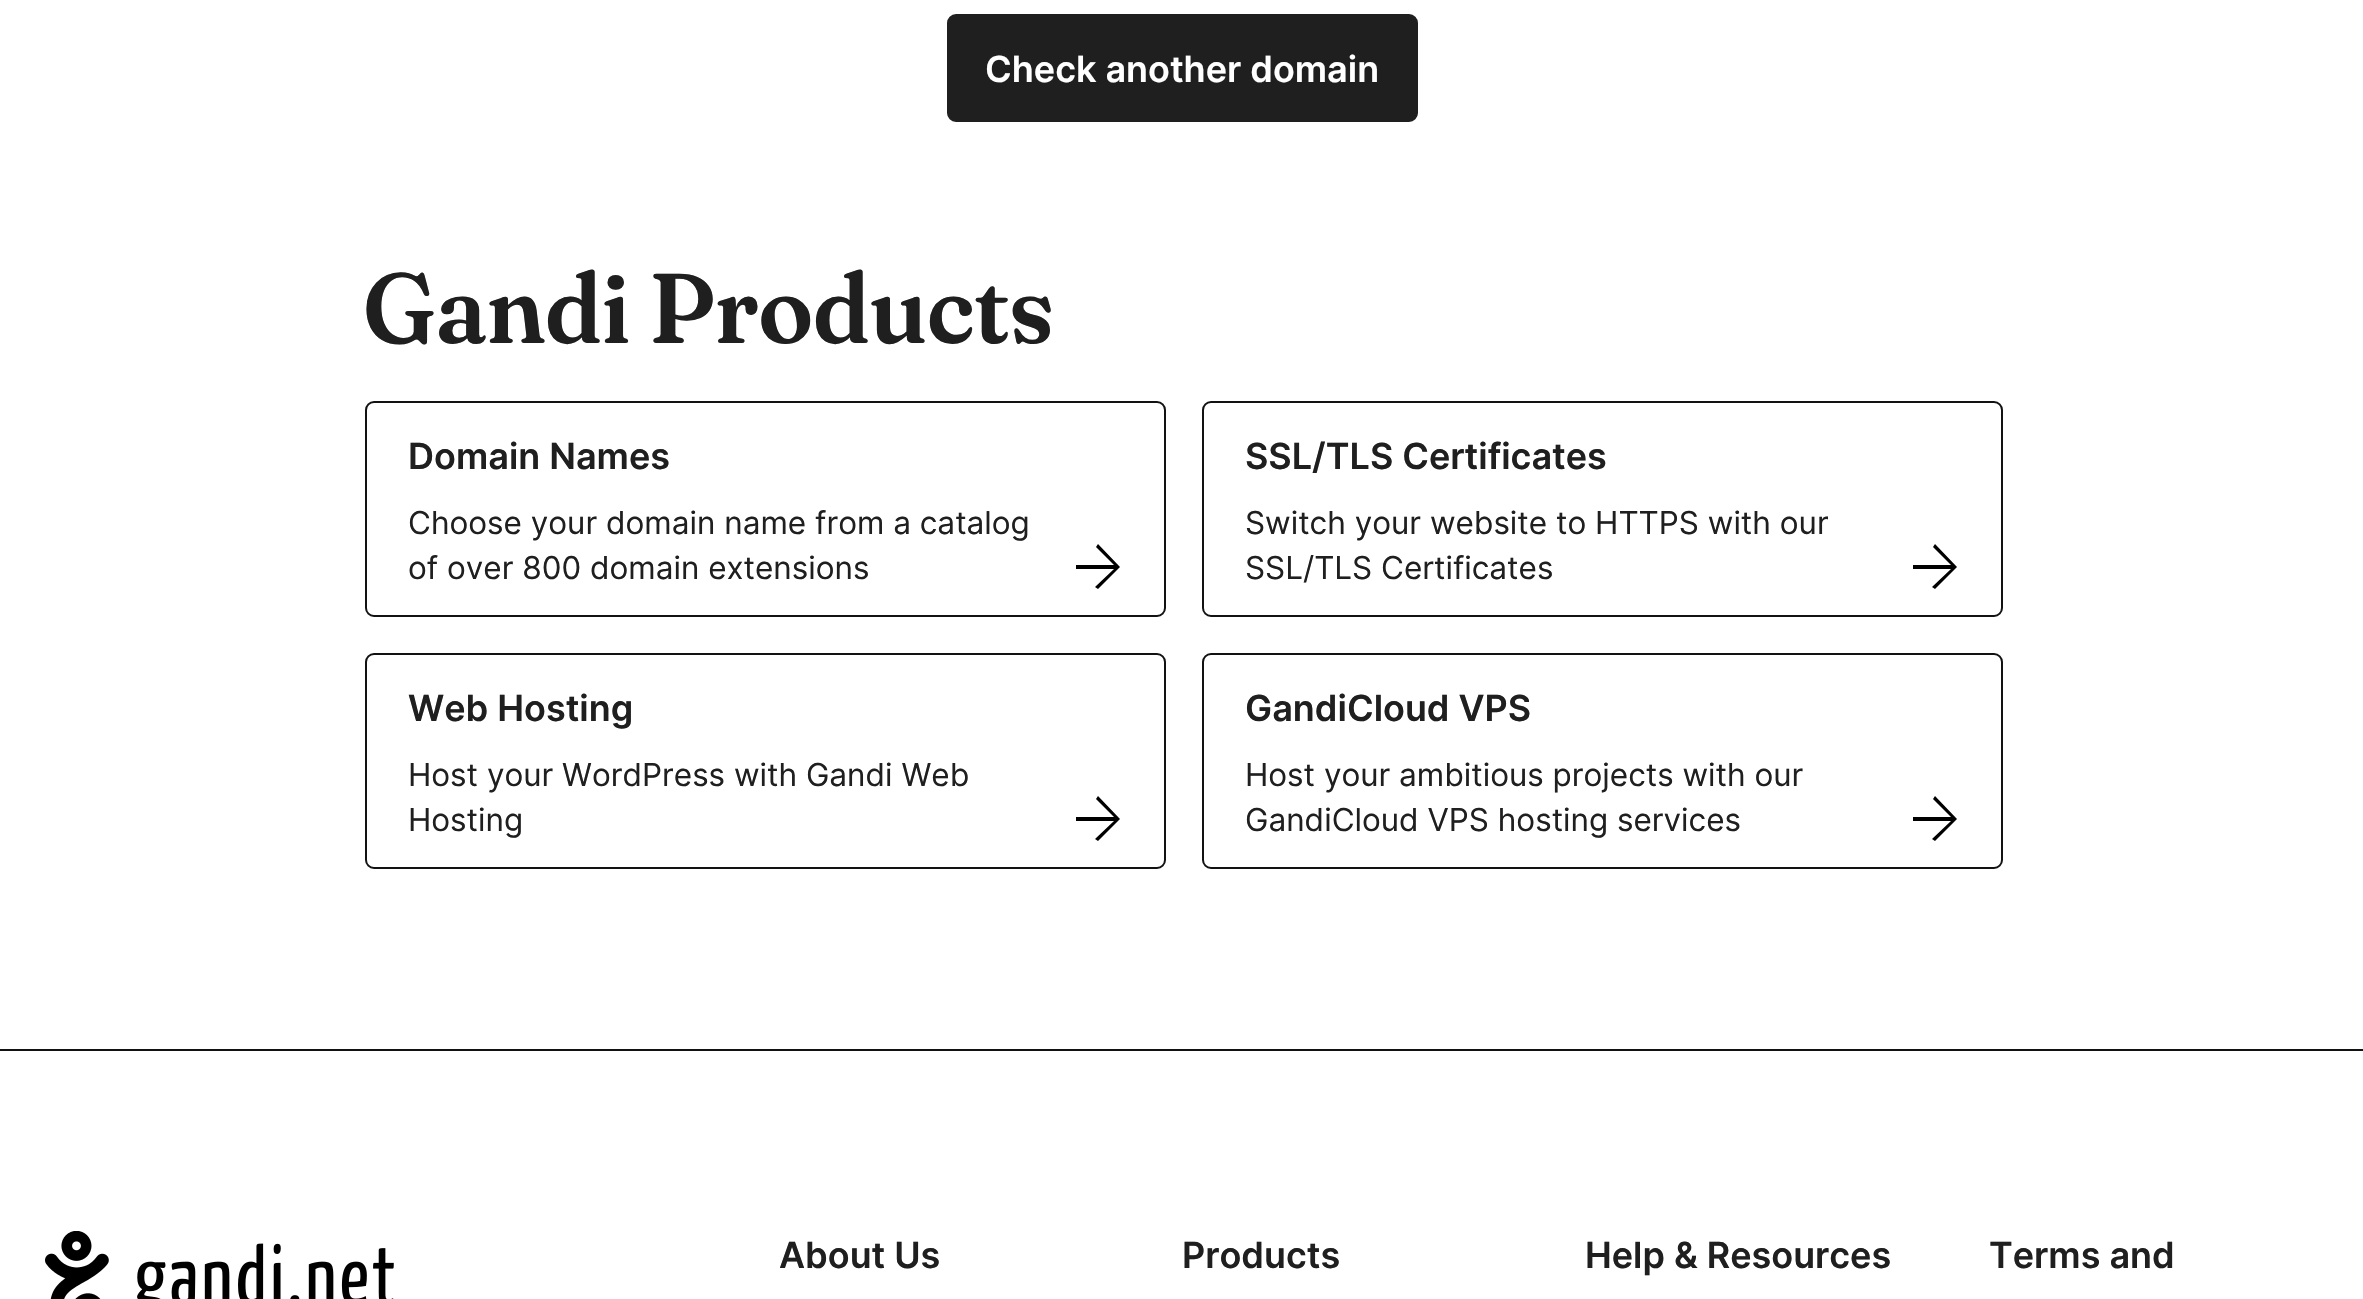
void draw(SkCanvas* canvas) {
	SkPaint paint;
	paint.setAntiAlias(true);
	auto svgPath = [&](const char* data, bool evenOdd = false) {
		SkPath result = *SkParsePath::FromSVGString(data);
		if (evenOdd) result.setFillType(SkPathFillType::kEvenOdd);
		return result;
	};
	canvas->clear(0xffffffff);
	paint.setColor(0xff1f1f1f);
	canvas->drawRoundRect(SkRect::MakeXYWH(948, 15, 469, 106), 8, 8, paint);
	paint.setStroke(true);
	paint.setStrokeWidth(2);
	canvas->drawRoundRect(SkRect::MakeXYWH(948, 15, 469, 106), 8, 8, paint);
	SkFont f1(fontMgr->matchFamilyStyle("Inter", SkFontStyle(600, SkFontStyle::kNormal_Width, SkFontStyle::kUpright_Slant)), 36);
	f1.setSubpixel(true);
	paint.setStroke(false);
	paint.setColor(0xffffffff);
	canvas->drawString("Check another domain", 985, 82, f1, paint);
	SkFont f2(fontMgr->matchFamilyStyle("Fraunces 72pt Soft", SkFontStyle(600, SkFontStyle::kNormal_Width, SkFontStyle::kUpright_Slant)), 99);
	f2.setSubpixel(true);
	paint.setColor(0xff1f1f1f);
	canvas->drawString("Gandi Products", 363, 343, f2, paint);
	paint.setColor(0xff000000);
	canvas->drawPath(svgPath("M1076 565H1114L1096 547L1098 544L1120 567L1098 589L1095 587L1114 569H1076Z"), paint);
	paint.setStroke(true);
	paint.setColor(0xff121212);
	canvas->drawRoundRect(SkRect::MakeXYWH(366, 402, 799, 214), 8, 8, paint);
	paint.setStroke(false);
	paint.setColor(0xff1f1f1f);
	canvas->drawString("Domain Names", 408, 469, f1, paint);
	SkFont f3(fontMgr->matchFamilyStyle("Inter", SkFontStyle::Normal()), 31.5);
	f3.setSubpixel(true);
	canvas->drawString("Choose your domain name from a catalog", 408, 534, f3, paint);
	canvas->drawString("of over 800 domain extensions", 408, 579, f3, paint);
	paint.setColor(0xff000000);
	canvas->drawPath(svgPath("M1913 565H1951L1933 547L1935 544L1957 567L1935 589L1932 587L1951 569H1913Z"), paint);
	paint.setStroke(true);
	paint.setColor(0xff121212);
	canvas->drawRoundRect(SkRect::MakeXYWH(1203, 402, 799, 214), 8, 8, paint);
	paint.setStroke(false);
	paint.setColor(0xff1f1f1f);
	canvas->drawString("SSL/TLS Certificates", 1245, 469, f1, paint);
	canvas->drawString("Switch your website to HTTPS with our", 1245, 534, f3, paint);
	canvas->drawString("SSL/TLS Certificates", 1245, 579, f3, paint);
	paint.setColor(0xff000000);
	canvas->drawPath(svgPath("M1076 817H1114L1096 799L1098 796L1120 819L1098 841L1095 839L1114 821H1076Z"), paint);
	paint.setStroke(true);
	paint.setColor(0xff121212);
	canvas->drawRoundRect(SkRect::MakeXYWH(366, 654, 799, 214), 8, 8, paint);
	paint.setStroke(false);
	paint.setColor(0xff1f1f1f);
	canvas->drawString("Web Hosting", 408, 721, f1, paint);
	canvas->drawString("Host your WordPress with Gandi Web", 408, 786, f3, paint);
	canvas->drawString("Hosting", 408, 831, f3, paint);
	paint.setColor(0xff000000);
	canvas->drawPath(svgPath("M1913 817H1951L1933 799L1935 796L1957 819L1935 841L1932 839L1951 821H1913Z"), paint);
	paint.setStroke(true);
	paint.setColor(0xff121212);
	canvas->drawRoundRect(SkRect::MakeXYWH(1203, 654, 799, 214), 8, 8, paint);
	paint.setStroke(false);
	paint.setColor(0xff1f1f1f);
	canvas->drawString("GandiCloud VPS", 1245, 721, f1, paint);
	canvas->drawString("Host your ambitious projects with our", 1245, 786, f3, paint);
	canvas->drawString("GandiCloud VPS hosting services", 1245, 831, f3, paint);
	paint.setColor(0xff121212);
	canvas->drawRect(SkRect::MakeXYWH(0, 1049, 2363, 2), paint);
	canvas->drawImageRect(SkImages::DeferredFromEncodedData(SkData::MakeFromFileName("img1.png")), SkRect::MakeXYWH(45, 1231, 349, 68), SkSamplingOptions());
	paint.setColor(0xff1f1f1f);
	canvas->drawString("About Us", 779, 1268, f1, paint);
	canvas->drawString("Products", 1182, 1268, f1, paint);
	canvas->drawString("Help & Resources", 1585, 1268, f1, paint);
	canvas->drawString("Terms and", 1989, 1268, f1, paint);
}
